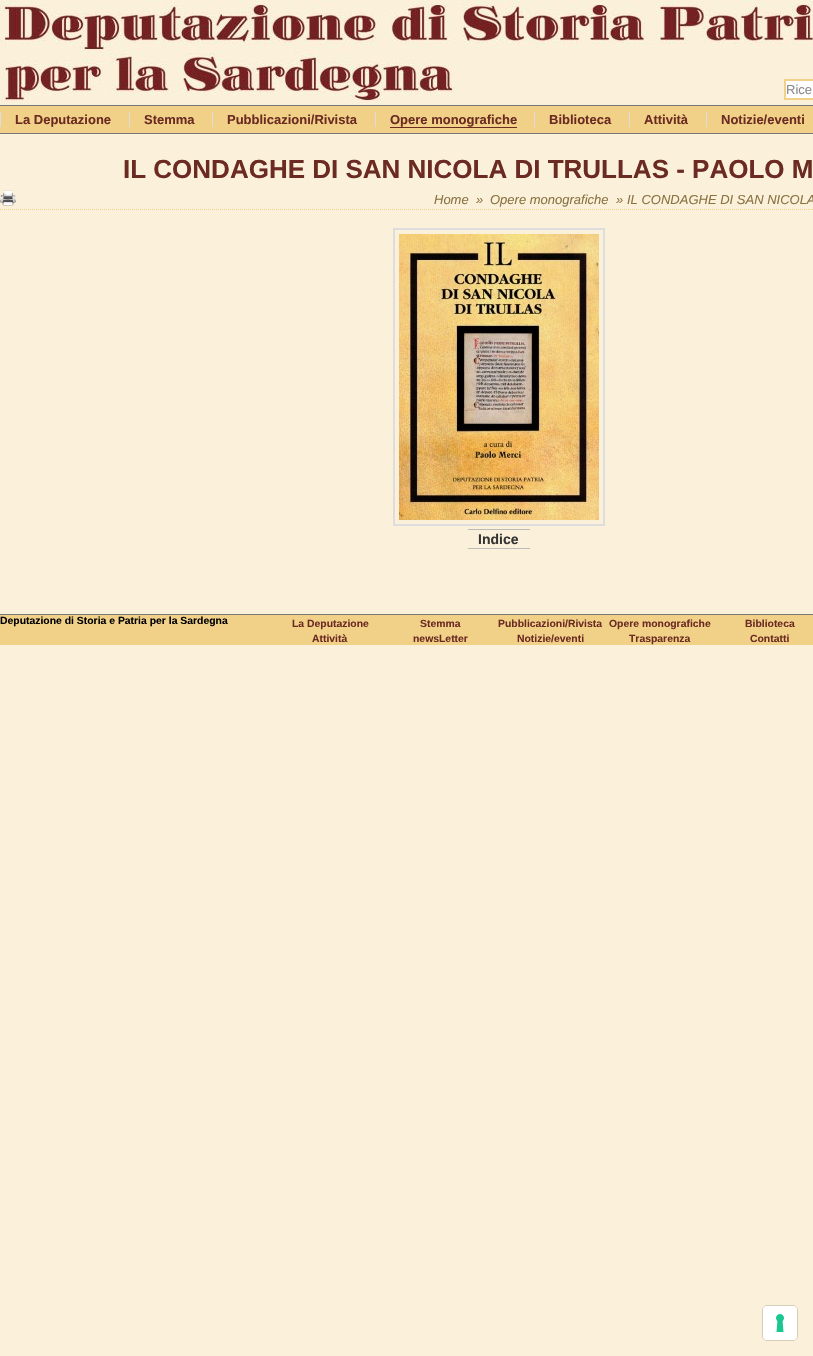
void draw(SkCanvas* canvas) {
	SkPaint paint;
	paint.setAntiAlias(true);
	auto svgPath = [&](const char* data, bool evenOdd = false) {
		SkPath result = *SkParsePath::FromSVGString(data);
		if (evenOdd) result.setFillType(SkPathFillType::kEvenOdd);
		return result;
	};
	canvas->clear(0xfffbf0da);
	canvas->drawImageRect(SkImages::DeferredFromEncodedData(SkData::MakeFromFileName("img1.png")), SkRect::MakeXYWH(0, 0, 813, 104), SkSamplingOptions());
	paint.setColor(0xffffffff);
	canvas->drawRect(SkRect::MakeXYWH(785, 80, 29, 19), paint);
	paint.setStroke(true);
	paint.setStrokeWidth(2);
	paint.setColor(0xfff1d188);
	canvas->drawRect(SkRect::MakeXYWH(785, 80, 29, 19), paint);
	SkFont f1(fontMgr->matchFamilyStyle("Liberation Sans", SkFontStyle::Normal()), 13);
	f1.setSubpixel(true);
	paint.setStroke(false);
	paint.setColor(0xff898989);
	canvas->drawString("Rice", 786, 94, f1, paint);
	paint.setColor(0xfff1d188);
	canvas->drawRect(SkRect::MakeXYWH(0, 106, 813, 27), paint);
	paint.setColor(0xff777777);
	canvas->drawRect(SkRect::MakeXYWH(0, 105, 813, 1), paint);
	canvas->drawRect(SkRect::MakeXYWH(0, 133, 813, 1), paint);
	SkFont f2(fontMgr->matchFamilyStyle("Liberation Sans", SkFontStyle::Bold()), 13);
	f2.setSubpixel(true);
	paint.setColor(0xff6b2b22);
	canvas->drawString("La Deputazione", 15, 124, f2, paint);
	paint.setColor(0xffdddddd);
	canvas->drawRect(SkRect::MakeXYWH(0, 112, 1, 15), paint);
	paint.setColor(0xff6b2b22);
	canvas->drawString("Stemma", 144, 124, f2, paint);
	paint.setColor(0xffdddddd);
	canvas->drawRect(SkRect::MakeXYWH(129, 112, 1, 15), paint);
	paint.setColor(0xff6b2b22);
	canvas->drawString("Pubblicazioni/Rivista", 227, 124, f2, paint);
	paint.setColor(0xffdddddd);
	canvas->drawRect(SkRect::MakeXYWH(212, 112, 1, 15), paint);
	paint.setColor(0xff6b2b22);
	canvas->drawString("Opere monografiche", 390, 124, f2, paint);
	paint.setColor(0xffdddddd);
	canvas->drawRect(SkRect::MakeXYWH(375, 112, 1, 15), paint);
	paint.setColor(0xff6b2b22);
	canvas->drawRect(SkRect::MakeXYWH(390, 127, 127, 1), paint);
	canvas->drawString("Biblioteca", 549, 124, f2, paint);
	paint.setColor(0xffdddddd);
	canvas->drawRect(SkRect::MakeXYWH(534, 112, 1, 15), paint);
	paint.setColor(0xff6b2b22);
	canvas->drawString("Attività", 644, 124, f2, paint);
	paint.setColor(0xffdddddd);
	canvas->drawRect(SkRect::MakeXYWH(629, 112, 1, 15), paint);
	paint.setColor(0xff6b2b22);
	canvas->drawString("Notizie/eventi", 721, 124, f2, paint);
	paint.setColor(0xffdddddd);
	canvas->drawRect(SkRect::MakeXYWH(706, 112, 1, 15), paint);
	SkFont f3(fontMgr->matchFamilyStyle("Liberation Sans", SkFontStyle::Bold()), 26);
	f3.setSubpixel(true);
	paint.setColor(0xff6b2b22);
	canvas->drawString("IL CONDAGHE DI SAN NICOLA DI TRULLAS - PAOLO M", 123, 178, f3, paint);
	paint.setStroke(true);
	paint.setStrokeWidth(1);
	paint.setColor(0xfff1d188);
	paint.setPathEffect(SkDashPathEffect::Make({{1, 1}}, 0));
	canvas->drawPath(svgPath("M0 209.5H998"), paint);
	paint.setPathEffect(nullptr);
	canvas->drawImageRect(SkImages::DeferredFromEncodedData(SkData::MakeFromFileName("img2.png")), SkRect::MakeXYWH(0, 190, 16, 16), SkSamplingOptions());
	SkFont f4(fontMgr->matchFamilyStyle("Liberation Sans", SkFontStyle::Italic()), 13);
	f4.setSubpixel(true);
	paint.setStroke(false);
	paint.setColor(0xff897341);
	canvas->drawString("Home", 434, 204, f4, paint);
	canvas->drawString("»", 476, 204, f4, paint);
	canvas->drawString("Opere monografiche", 490, 204, f4, paint);
	canvas->drawString("»", 616, 204, f4, paint);
	canvas->drawString("IL CONDAGHE DI SAN NICOLA", 627, 204, f4, paint);
	paint.setStroke(true);
	paint.setStrokeWidth(2);
	paint.setColor(0xffdddddd);
	canvas->drawRect(SkRect::MakeXYWH(394, 229, 210, 296), paint);
	canvas->drawImageRect(SkImages::DeferredFromEncodedData(SkData::MakeFromFileName("img3.png")), SkRect::MakeXYWH(399, 234, 200, 286), SkSamplingOptions());
	SkFont f5(fontMgr->matchFamilyStyle("Liberation Sans", SkFontStyle::Bold()), 14);
	f5.setSubpixel(true);
	paint.setStroke(false);
	paint.setColor(0xff343434);
	canvas->drawString("Indice", 478, 544, f5, paint);
	paint.setColor(0xffbbbbbb);
	canvas->drawRect(SkRect::MakeXYWH(468, 529, 62, 1), paint);
	canvas->drawRect(SkRect::MakeXYWH(468, 548, 62, 1), paint);
	paint.setColor(0xfff1d188);
	canvas->drawRect(SkRect::MakeXYWH(0, 615, 813, 30), paint);
	paint.setColor(0xff777777);
	canvas->drawRect(SkRect::MakeXYWH(0, 614, 813, 1), paint);
	SkFont f6(fontMgr->matchFamilyStyle("Liberation Sans", SkFontStyle::Bold()), 10.4);
	f6.setSubpixel(true);
	paint.setColor(0xff000000);
	canvas->drawString("Deputazione di Storia e Patria per la Sardegna", 0, 624, f6, paint);
	paint.setColor(0xff6b2b22);
	canvas->drawString("La Deputazione", 292, 627, f6, paint);
	canvas->drawString("Stemma", 420, 627, f6, paint);
	canvas->drawString("Pubblicazioni/Rivista", 498, 627, f6, paint);
	canvas->drawString("Opere monografiche", 609, 627, f6, paint);
	canvas->drawString("Biblioteca", 745, 627, f6, paint);
	canvas->drawString("Attività", 312, 642, f6, paint);
	canvas->drawString("newsLetter", 413, 642, f6, paint);
	canvas->drawString("Notizie/eventi", 517, 642, f6, paint);
	canvas->drawString("Trasparenza", 629, 642, f6, paint);
	canvas->drawString("Contatti", 750, 642, f6, paint);
	paint.setStroke(true);
	paint.setStrokeWidth(1);
	paint.setColor(0xffd5ccb9);
	canvas->drawRoundRect(SkRect::MakeXYWH(762.5, 1305.5, 35, 35), 4.5, 4.5, paint);
	paint.setStroke(false);
	paint.setColor(0xffffffff);
	canvas->drawRoundRect(SkRect::MakeXYWH(763, 1306, 34, 34), 4, 4, paint);
	canvas->drawImageRect(SkImages::DeferredFromEncodedData(SkData::MakeFromFileName("img4.png")), SkRect::MakeXYWH(776, 1314, 8, 18), SkSamplingOptions());
}
